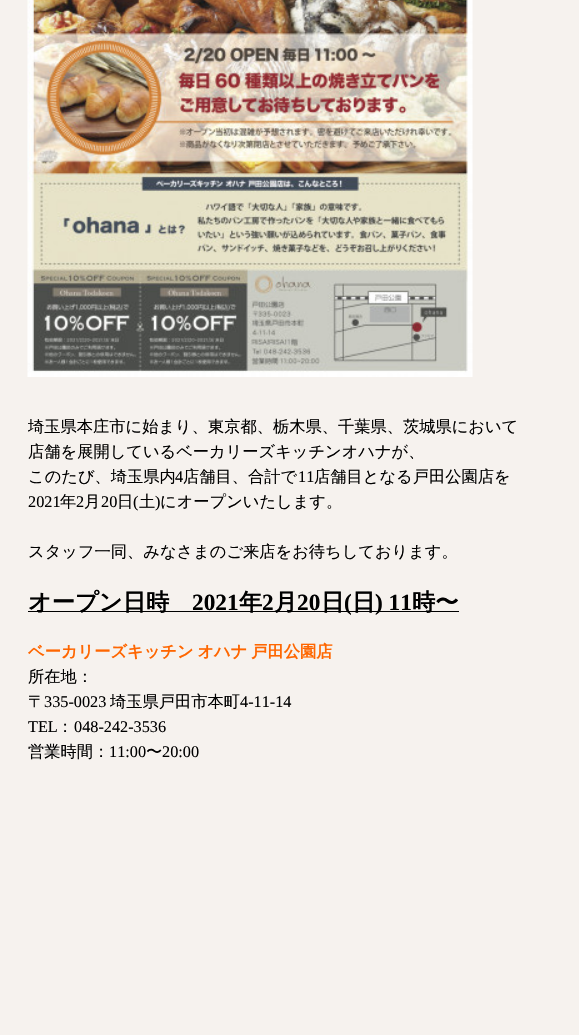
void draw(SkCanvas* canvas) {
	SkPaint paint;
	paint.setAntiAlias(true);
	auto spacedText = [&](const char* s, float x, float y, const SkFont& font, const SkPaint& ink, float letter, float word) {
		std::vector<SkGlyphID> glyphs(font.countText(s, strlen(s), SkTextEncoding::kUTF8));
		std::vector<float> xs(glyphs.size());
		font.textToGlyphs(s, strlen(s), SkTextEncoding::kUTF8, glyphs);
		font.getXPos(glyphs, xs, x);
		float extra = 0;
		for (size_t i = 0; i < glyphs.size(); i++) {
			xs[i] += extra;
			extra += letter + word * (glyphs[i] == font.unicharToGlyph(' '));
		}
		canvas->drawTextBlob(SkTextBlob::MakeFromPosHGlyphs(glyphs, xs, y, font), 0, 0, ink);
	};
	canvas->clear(0xfff6f2ee);
	canvas->drawImageRect(SkImages::DeferredFromEncodedData(SkData::MakeFromFileName("img1.png")), SkRect::MakeXYWH(27, 0, 446, 377), SkSamplingOptions());
	SkFont f1(fontMgr->matchFamilyStyle("WenQuanYi Zen Hei", SkFontStyle(500, SkFontStyle::kNormal_Width, SkFontStyle::kUpright_Slant)), 16.25);
	f1.setSubpixel(true);
	paint.setColor(0xff000000);
	canvas->drawString("埼玉県本庄市に始まり、東京都、栃木県、千葉県、茨城県において", 28, 432, f1, paint);
	canvas->drawString("店舗を展開しているベーカリーズキッチンオハナが、", 28, 457, f1, paint);
	canvas->drawString("このたび、埼玉県内", 28, 482, f1, paint);
	SkFont f2(fontMgr->matchFamilyStyle("Liberation Serif", SkFontStyle::Normal()), 16.25);
	f2.setSubpixel(true);
	canvas->drawString("4", 175, 482, f2, paint);
	canvas->drawString("店舗目、合計で", 183, 482, f1, paint);
	canvas->drawString("11", 298, 482, f2, paint);
	canvas->drawString("店舗目となる戸田公園店を", 314, 482, f1, paint);
	canvas->drawString("2021", 28, 507, f2, paint);
	canvas->drawString("年", 60, 507, f1, paint);
	canvas->drawString("2", 76, 507, f2, paint);
	canvas->drawString("月", 84, 507, f1, paint);
	canvas->drawString("20", 101, 507, f2, paint);
	canvas->drawString("日", 117, 507, f1, paint);
	canvas->drawString("(", 133, 507, f2, paint);
	canvas->drawString("土", 139, 507, f1, paint);
	canvas->drawString(")", 155, 507, f2, paint);
	canvas->drawString("にオープンいたします。", 160, 507, f1, paint);
	canvas->drawString("スタッフ一同、みなさまのご来店をお待ちしております。", 28, 557, f1, paint);
	canvas->drawRect(SkRect::MakeXYWH(28, 611, 431, 1), paint);
	SkFont f3(fontMgr->matchFamilyStyle("WenQuanYi Zen Hei", SkFontStyle::Bold()), 23.25);
	f3.setSubpixel(true);
	canvas->drawString("オープン日時", 28, 610, f3, paint);
	SkFont f4(fontMgr->matchFamilyStyle("Liberation Serif", SkFontStyle::Bold()), 23.25);
	f4.setSubpixel(true);
	canvas->drawString("2021", 192, 610, f4, paint);
	canvas->drawString("年", 239, 610, f3, paint);
	canvas->drawString("2", 262, 610, f4, paint);
	canvas->drawString("月", 274, 610, f3, paint);
	canvas->drawString("20", 297, 610, f4, paint);
	canvas->drawString("日", 321, 610, f3, paint);
	canvas->drawString("(", 344, 610, f4, paint);
	canvas->drawString("日", 352, 610, f3, paint);
	canvas->drawString(") 11", 375, 610, f4, paint);
	canvas->drawString("時〜", 412, 610, f3, paint);
	SkFont f5(fontMgr->matchFamilyStyle("WenQuanYi Zen Hei", SkFontStyle::Bold()), 16.25);
	f5.setSubpixel(true);
	paint.setColor(0xffff6600);
	spacedText("ベーカリーズキッチン オハナ 戸田公園店", 28, 657, f5, paint, 0, -1);
	paint.setColor(0xff000000);
	canvas->drawString("所在地：", 28, 682, f1, paint);
	canvas->drawString("〒", 28, 707, f1, paint);
	canvas->drawString("335-0023", 44, 707, f2, paint);
	canvas->drawString("埼玉県戸田市本町", 110, 707, f1, paint);
	canvas->drawString("4-11-14", 240, 707, f2, paint);
	canvas->drawString("TEL", 28, 732, f2, paint);
	canvas->drawString("：", 57, 732, f1, paint);
	canvas->drawString("048-242-3536", 74, 732, f2, paint);
	canvas->drawString("営業時間：", 28, 757, f1, paint);
	canvas->drawString("11:00", 109, 757, f2, paint);
	canvas->drawString("〜", 146, 757, f1, paint);
	canvas->drawString("20:00", 162, 757, f2, paint);
}
